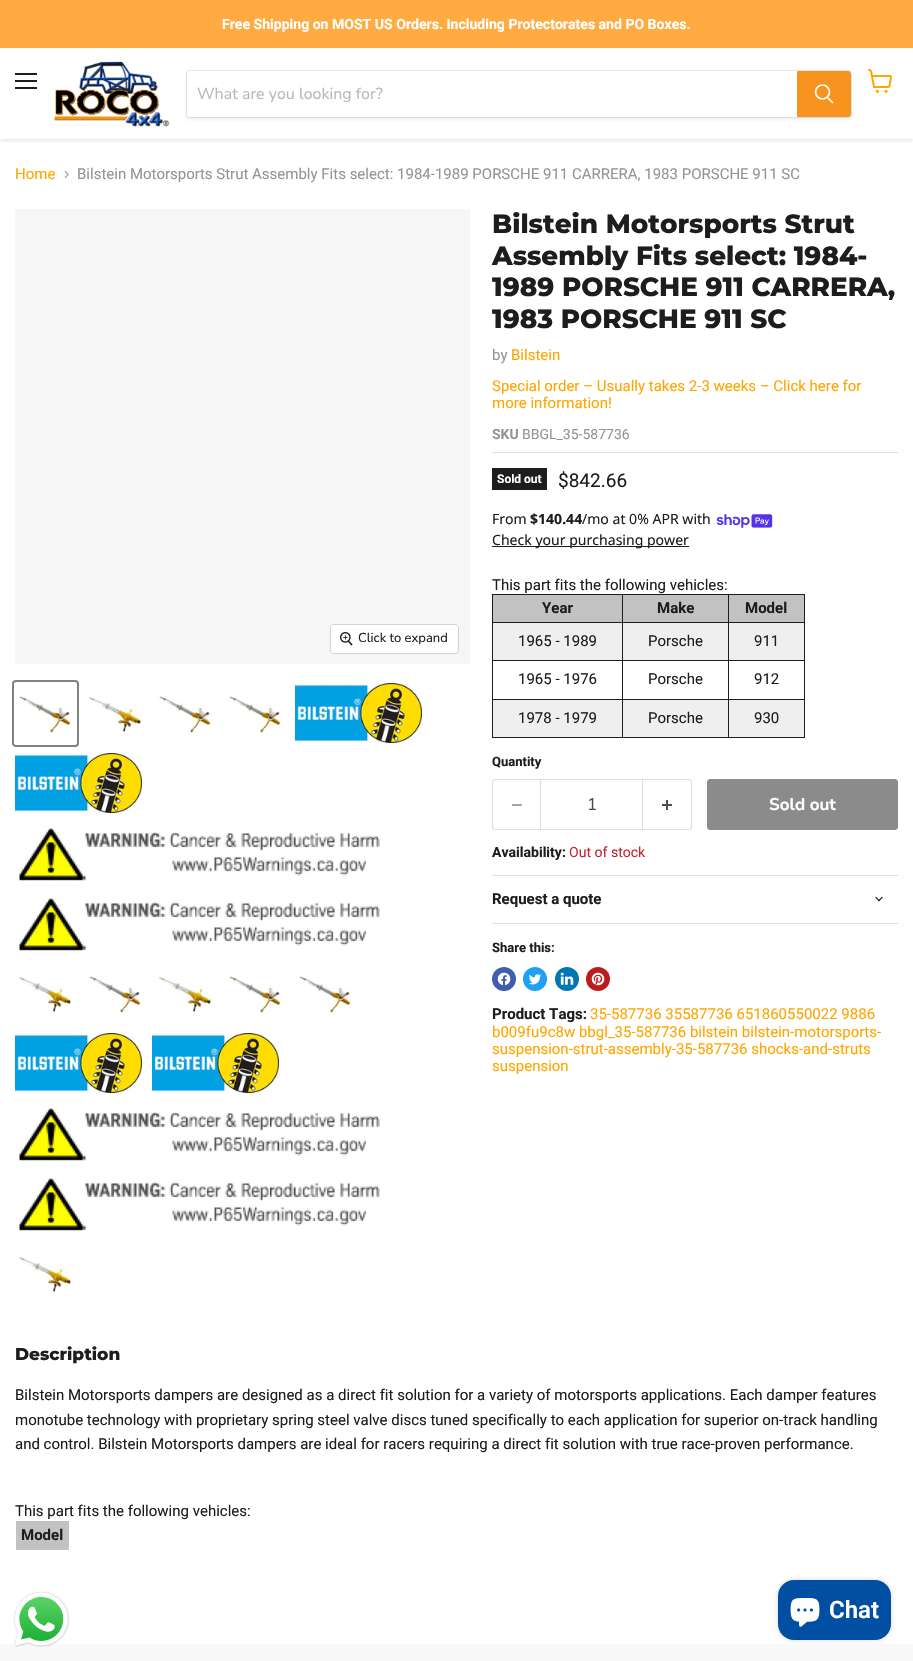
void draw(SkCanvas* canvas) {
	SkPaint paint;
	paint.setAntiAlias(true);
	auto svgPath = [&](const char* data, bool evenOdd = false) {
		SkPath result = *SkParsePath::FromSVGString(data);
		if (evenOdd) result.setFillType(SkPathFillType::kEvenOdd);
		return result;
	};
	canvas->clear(0xffffffff);
	canvas->save();
	canvas->clipRect(SkRect::MakeXYWH(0, 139, 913, 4));
	paint.setColor(0x40808080);
	paint.setMaskFilter(SkMaskFilter::MakeBlur(kNormal_SkBlurStyle, 2));
	canvas->drawRect(SkRect::MakeXYWH(0, 49, 913, 91), paint);
	paint.setMaskFilter(nullptr);
	canvas->restore();
	paint.setColor(0xffffab41);
	canvas->drawRect(SkRect::MakeXYWH(0, 0, 913, 48), paint);
	SkFont f1(fontMgr->matchFamilyStyle("Roboto", SkFontStyle::Bold()), 14.05);
	f1.setSubpixel(true);
	paint.setColor(0xffffffff);
	canvas->drawString("Free Shipping on MOST US Orders. Including Protectorates and PO Boxes.", 222, 29, f1, paint);
	paint.setColor(0xff1d1d1d);
	canvas->drawRect(SkRect::MakeXYWH(15, 73, 22, 2), paint);
	canvas->drawRect(SkRect::MakeXYWH(15, 80, 22, 2), paint);
	canvas->drawRect(SkRect::MakeXYWH(15, 87, 22, 2), paint);
	canvas->drawImageRect(SkImages::DeferredFromEncodedData(SkData::MakeFromFileName("img1.png")), SkRect::MakeXYWH(868, 69, 24, 24), SkSamplingOptions());
	canvas->drawImageRect(SkImages::DeferredFromEncodedData(SkData::MakeFromFileName("img2.png")), SkRect::MakeXYWH(54, 61, 116, 66), SkSamplingOptions());
	paint.setColor(0x1c808080);
	paint.setMaskFilter(SkMaskFilter::MakeBlur(kNormal_SkBlurStyle, 1.5));
	canvas->drawRoundRect(SkRect::MakeXYWH(186, 72, 666, 48), 4, 4, paint);
	paint.setMaskFilter(nullptr);
	paint.setStroke(true);
	paint.setStrokeWidth(1);
	paint.setColor(0x33808080);
	canvas->drawRoundRect(SkRect::MakeXYWH(186.5, 70.5, 665, 47), 3.5, 3.5, paint);
	paint.setStroke(false);
	paint.setColor(0xffffffff);
	canvas->drawPath(svgPath("M190 71H797V117H190C188.5 117 187 115.5 187 114V74C187 72.5 188.5 71 190 71Z"), paint);
	SkFont f2(fontMgr->matchFamilyStyle("Nunito Sans", SkFontStyle::Normal()), 16);
	f2.setSubpixel(true);
	paint.setColor(0xffb8b8b8);
	canvas->drawString("What are you looking for?", 197, 99, f2, paint);
	paint.setColor(0xfff7931e);
	canvas->drawPath(svgPath("M797.5 71.5H848C849.5 71.5 850.5 72.5 850.5 74V114C850.5 115.5 849.5 116.5 848 116.5H797.5Z"), paint);
	paint.setStroke(true);
	canvas->drawPath(svgPath("M797.5 71.5H848C849.5 71.5 850.5 72.5 850.5 74V114C850.5 115.5 849.5 116.5 848 116.5H797.5Z"), paint);
	paint.setStrokeWidth(1.7);
	paint.setStrokeCap(SkPaint::kRound_Cap);
	paint.setColor(0xffffffff);
	canvas->drawPath(svgPath("M832.5 102.5L827.5 97.5"), paint);
	paint.setStrokeCap(SkPaint::kButt_Cap);
	canvas->drawCircle(822.5, 92, 7, paint);
	SkFont f3(fontMgr->matchFamilyStyle("Roboto", SkFontStyle::Normal()), 15);
	f3.setSubpixel(true);
	paint.setStroke(false);
	paint.setColor(0xffffa500);
	canvas->drawString("Home", 15, 179, f3, paint);
	canvas->drawImageRect(SkImages::DeferredFromEncodedData(SkData::MakeFromFileName("img3.png")), SkRect::MakeXYWH(64, 171, 5, 7), SkSamplingOptions());
	paint.setColor(0xff949494);
	canvas->drawString("Bilstein Motorsports Strut Assembly Fits select: 1984-1989 PORSCHE 911 CARRERA, 1983 PORSCHE 911 SC", 77, 179, f3, paint);
	paint.setColor(0xfff6f6f6);
	canvas->drawRect(SkRect::MakeXYWH(15, 209, 455, 455), paint);
	paint.setStroke(true);
	paint.setStrokeWidth(1);
	paint.setColor(0xffd1d1d1);
	canvas->drawRoundRect(SkRect::MakeXYWH(330.5, 624.5, 128, 29), 3.5, 3.5, paint);
	paint.setStroke(false);
	paint.setColor(0xe6ffffff);
	canvas->drawRoundRect(SkRect::MakeXYWH(331, 625, 127, 28), 3, 3, paint);
	canvas->drawImageRect(SkImages::DeferredFromEncodedData(SkData::MakeFromFileName("img4.png")), SkRect::MakeXYWH(340, 632, 13, 14), SkSamplingOptions());
	SkFont f4(fontMgr->matchFamilyStyle("Nunito Sans", SkFontStyle::Normal()), 13);
	f4.setSubpixel(true);
	paint.setColor(0xff1d1d1d);
	canvas->drawString("Click to expand", 358, 642, f4, paint);
	paint.setStroke(true);
	paint.setStrokeWidth(2);
	paint.setColor(0xff818181);
	canvas->drawRoundRect(SkRect::MakeXYWH(13, 681, 65, 65), 3, 3, paint);
	canvas->drawImageRect(SkImages::DeferredFromEncodedData(SkData::MakeFromFileName("img5.png")), SkRect::MakeXYWH(19, 696, 53, 37), SkSamplingOptions());
	canvas->drawImageRect(SkImages::DeferredFromEncodedData(SkData::MakeFromFileName("img6.png")), SkRect::MakeXYWH(89, 696, 53, 38), SkSamplingOptions());
	canvas->drawImageRect(SkImages::DeferredFromEncodedData(SkData::MakeFromFileName("img7.png")), SkRect::MakeXYWH(158, 696, 54, 38), SkSamplingOptions());
	canvas->drawImageRect(SkImages::DeferredFromEncodedData(SkData::MakeFromFileName("img8.png")), SkRect::MakeXYWH(229, 696, 53, 37), SkSamplingOptions());
	canvas->drawImageRect(SkImages::DeferredFromEncodedData(SkData::MakeFromFileName("img9.png")), SkRect::MakeXYWH(295, 683, 127, 60), SkSamplingOptions());
	canvas->drawImageRect(SkImages::DeferredFromEncodedData(SkData::MakeFromFileName("img9.png")), SkRect::MakeXYWH(15, 753, 127, 60), SkSamplingOptions());
	canvas->drawImageRect(SkImages::DeferredFromEncodedData(SkData::MakeFromFileName("img10.png")), SkRect::MakeXYWH(18, 828, 362, 53), SkSamplingOptions());
	canvas->drawImageRect(SkImages::DeferredFromEncodedData(SkData::MakeFromFileName("img11.png")), SkRect::MakeXYWH(19, 897, 361, 54), SkSamplingOptions());
	canvas->drawImageRect(SkImages::DeferredFromEncodedData(SkData::MakeFromFileName("img12.png")), SkRect::MakeXYWH(19, 976, 53, 38), SkSamplingOptions());
	canvas->drawImageRect(SkImages::DeferredFromEncodedData(SkData::MakeFromFileName("img5.png")), SkRect::MakeXYWH(89, 976, 53, 37), SkSamplingOptions());
	canvas->drawImageRect(SkImages::DeferredFromEncodedData(SkData::MakeFromFileName("img6.png")), SkRect::MakeXYWH(159, 976, 53, 38), SkSamplingOptions());
	canvas->drawImageRect(SkImages::DeferredFromEncodedData(SkData::MakeFromFileName("img7.png")), SkRect::MakeXYWH(228, 976, 54, 38), SkSamplingOptions());
	canvas->drawImageRect(SkImages::DeferredFromEncodedData(SkData::MakeFromFileName("img8.png")), SkRect::MakeXYWH(299, 976, 53, 37), SkSamplingOptions());
	canvas->drawImageRect(SkImages::DeferredFromEncodedData(SkData::MakeFromFileName("img9.png")), SkRect::MakeXYWH(15, 1033, 127, 60), SkSamplingOptions());
	canvas->drawImageRect(SkImages::DeferredFromEncodedData(SkData::MakeFromFileName("img13.png")), SkRect::MakeXYWH(152, 1033, 127, 60), SkSamplingOptions());
	canvas->drawImageRect(SkImages::DeferredFromEncodedData(SkData::MakeFromFileName("img10.png")), SkRect::MakeXYWH(18, 1108, 362, 53), SkSamplingOptions());
	canvas->drawImageRect(SkImages::DeferredFromEncodedData(SkData::MakeFromFileName("img11.png")), SkRect::MakeXYWH(19, 1177, 361, 54), SkSamplingOptions());
	canvas->drawImageRect(SkImages::DeferredFromEncodedData(SkData::MakeFromFileName("img12.png")), SkRect::MakeXYWH(19, 1256, 53, 38), SkSamplingOptions());
	SkFont f5(fontMgr->matchFamilyStyle("Montserrat", SkFontStyle(800, SkFontStyle::kNormal_Width, SkFontStyle::kUpright_Slant)), 26.25);
	f5.setSubpixel(true);
	paint.setStroke(false);
	paint.setColor(0xff1d1d1d);
	canvas->drawString("Bilstein Motorsports Strut", 492, 233, f5, paint);
	canvas->drawString("Assembly Fits select: 1984-", 492, 265, f5, paint);
	canvas->drawString("1989 PORSCHE 911 CARRERA,", 492, 296, f5, paint);
	canvas->drawString("1983 PORSCHE 911 SC", 492, 328, f5, paint);
	paint.setColor(0xff949494);
	canvas->drawString("by", 492, 360, f3, paint);
	paint.setColor(0xffffa500);
	canvas->drawString("Bilstein", 511, 360, f3, paint);
	canvas->drawString("Special order – Usually takes 2-3 weeks – Click here for", 492, 391, f3, paint);
	canvas->drawString("more information!", 492, 408, f3, paint);
	SkFont f6(fontMgr->matchFamilyStyle("Roboto", SkFontStyle::Bold()), 14);
	f6.setSubpixel(true);
	paint.setColor(0xff949494);
	canvas->drawString("SKU", 492, 439, f6, paint);
	SkFont f7(fontMgr->matchFamilyStyle("Roboto", SkFontStyle::Normal()), 14);
	f7.setSubpixel(true);
	canvas->drawString("BBGL_35-587736", 522, 439, f7, paint);
	paint.setColor(0xffdddddd);
	canvas->drawRect(SkRect::MakeXYWH(492, 452, 406, 1), paint);
	paint.setColor(0xff1d1d1d);
	canvas->drawRect(SkRect::MakeXYWH(492, 468, 55, 22), paint);
	SkFont f8(fontMgr->matchFamilyStyle("Roboto", SkFontStyle::Bold()), 12);
	f8.setSubpixel(true);
	paint.setColor(0xffffffff);
	canvas->drawString("Sold out", 497, 483, f8, paint);
	SkFont f9(fontMgr->matchFamilyStyle("Roboto", SkFontStyle::Normal()), 19);
	f9.setSubpixel(true);
	paint.setColor(0xff1d1d1d);
	canvas->drawString("$842.66", 558, 487, f9, paint);
	SkFont f10(fontMgr->matchFamilyStyle("Noto Sans", SkFontStyle::Normal()), 14.05);
	f10.setSubpixel(true);
	canvas->drawString("From", 492, 524, f10, paint);
	SkFont f11(fontMgr->matchFamilyStyle("Noto Sans", SkFontStyle::Bold()), 14.05);
	f11.setSubpixel(true);
	canvas->drawString("$140.44", 530, 524, f11, paint);
	canvas->drawString("/mo at 0% APR with", 582, 524, f10, paint);
	canvas->drawImageRect(SkImages::DeferredFromEncodedData(SkData::MakeFromFileName("img14.png")), SkRect::MakeXYWH(716, 514, 57, 14), SkSamplingOptions());
	canvas->drawRect(SkRect::MakeXYWH(492, 546, 197, 1), paint);
	canvas->drawString("Check your purchasing power", 492, 545, f10, paint);
	canvas->drawString("This part fits the following vehicles:", 492, 590, f3, paint);
	paint.setColor(0xffc2c2c2);
	canvas->drawRect(SkRect::MakeXYWH(493, 595, 311, 27), paint);
	paint.setColor(0xff1d1d1d);
	canvas->drawRect(SkRect::MakeXYWH(728, 594, 77, 1), paint);
	canvas->drawRect(SkRect::MakeXYWH(728, 622, 77, 1), paint);
	paint.setColor(0xffefefef);
	canvas->drawRect(SkRect::MakeXYWH(493, 623, 311, 37), paint);
	paint.setColor(0xff1d1d1d);
	canvas->drawRect(SkRect::MakeXYWH(728, 660, 77, 1), paint);
	canvas->drawRect(SkRect::MakeXYWH(728, 699, 77, 1), paint);
	paint.setColor(0xffefefef);
	canvas->drawRect(SkRect::MakeXYWH(493, 700, 311, 37), paint);
	paint.setColor(0xff1d1d1d);
	canvas->drawRect(SkRect::MakeXYWH(804, 699, 1, 39), paint);
	canvas->drawRect(SkRect::MakeXYWH(728, 737, 77, 1), paint);
	canvas->drawRect(SkRect::MakeXYWH(728, 699, 1, 39), paint);
	canvas->drawRect(SkRect::MakeXYWH(622, 699, 107, 1), paint);
	canvas->drawRect(SkRect::MakeXYWH(728, 660, 1, 40), paint);
	canvas->drawRect(SkRect::MakeXYWH(622, 660, 107, 1), paint);
	canvas->drawRect(SkRect::MakeXYWH(728, 622, 1, 39), paint);
	canvas->drawRect(SkRect::MakeXYWH(622, 622, 107, 1), paint);
	canvas->drawRect(SkRect::MakeXYWH(728, 594, 1, 29), paint);
	canvas->drawRect(SkRect::MakeXYWH(622, 594, 107, 1), paint);
	canvas->drawRect(SkRect::MakeXYWH(622, 737, 107, 1), paint);
	canvas->drawRect(SkRect::MakeXYWH(622, 699, 1, 39), paint);
	canvas->drawRect(SkRect::MakeXYWH(492, 699, 131, 1), paint);
	canvas->drawRect(SkRect::MakeXYWH(622, 660, 1, 40), paint);
	canvas->drawRect(SkRect::MakeXYWH(492, 660, 131, 1), paint);
	canvas->drawRect(SkRect::MakeXYWH(622, 622, 1, 39), paint);
	canvas->drawRect(SkRect::MakeXYWH(492, 622, 131, 1), paint);
	canvas->drawRect(SkRect::MakeXYWH(622, 594, 1, 29), paint);
	canvas->drawRect(SkRect::MakeXYWH(492, 594, 131, 1), paint);
	canvas->drawRect(SkRect::MakeXYWH(492, 737, 131, 1), paint);
	canvas->drawRect(SkRect::MakeXYWH(492, 699, 1, 39), paint);
	canvas->drawRect(SkRect::MakeXYWH(492, 660, 1, 40), paint);
	canvas->drawRect(SkRect::MakeXYWH(492, 622, 1, 39), paint);
	canvas->drawRect(SkRect::MakeXYWH(492, 594, 1, 29), paint);
	SkFont f12(fontMgr->matchFamilyStyle("Roboto", SkFontStyle::Bold()), 15);
	f12.setSubpixel(true);
	canvas->drawString("Year", 542, 613, f12, paint);
	canvas->drawString("Make", 657, 613, f12, paint);
	canvas->drawRect(SkRect::MakeXYWH(804, 660, 1, 40), paint);
	canvas->drawRect(SkRect::MakeXYWH(804, 622, 1, 39), paint);
	canvas->drawRect(SkRect::MakeXYWH(804, 594, 1, 29), paint);
	canvas->drawString("Model", 745, 613, f12, paint);
	canvas->drawString("1965 - 1989", 518, 646, f3, paint);
	canvas->drawString("Porsche", 648, 646, f3, paint);
	canvas->drawString("911", 754, 646, f3, paint);
	canvas->drawString("1965 - 1976", 518, 684, f3, paint);
	canvas->drawString("Porsche", 648, 684, f3, paint);
	canvas->drawString("912", 754, 684, f3, paint);
	canvas->drawString("1978 - 1979", 518, 723, f3, paint);
	canvas->drawString("Porsche", 648, 723, f3, paint);
	canvas->drawString("930", 754, 723, f3, paint);
	SkFont f13(fontMgr->matchFamilyStyle("Roboto", SkFontStyle::Bold()), 13);
	f13.setSubpixel(true);
	canvas->drawString("Quantity", 492, 766, f13, paint);
	paint.setColor(0xffdddddd);
	canvas->drawPath(svgPath("M495 779H540V830H495C493 830 492 829 492 827V782C492 780 493 779 495 779ZM495 780H540V829H495C494 829 493 828 493 827V782C493 781 494 780 495 780Z", true), paint);
	paint.setColor(0xffa6a6a6);
	canvas->drawRect(SkRect::MakeXYWH(512, 804, 10, 2), paint);
	paint.setStroke(true);
	paint.setStrokeWidth(1);
	paint.setColor(0xffdddddd);
	canvas->drawRect(SkRect::MakeXYWH(540.5, 779.5, 102, 50), paint);
	SkFont f14(fontMgr->matchFamilyStyle("Nunito Sans", SkFontStyle::Normal()), 17);
	f14.setSubpixel(true);
	paint.setStroke(false);
	paint.setColor(0xff4d4d4d);
	canvas->drawString("1", 587, 810, f14, paint);
	paint.setColor(0xffdddddd);
	canvas->drawPath(svgPath("M643 779H689C691 779 692 780 692 782V827C692 829 691 830 689 830H643ZM643 780H689C690 780 691 781 691 782V827C691 828 690 829 689 829H643Z", true), paint);
	canvas->drawImageRect(SkImages::DeferredFromEncodedData(SkData::MakeFromFileName("img15.png")), SkRect::MakeXYWH(662, 800, 10, 10), SkSamplingOptions());
	paint.setColor(0xff8b8b8b);
	canvas->drawRoundRect(SkRect::MakeXYWH(707.5, 779.5, 190, 50), 2.5, 2.5, paint);
	paint.setStroke(true);
	canvas->drawRoundRect(SkRect::MakeXYWH(707.5, 779.5, 190, 50), 2.5, 2.5, paint);
	SkFont f15(fontMgr->matchFamilyStyle("Nunito Sans", SkFontStyle::Bold()), 17);
	f15.setSubpixel(true);
	paint.setStroke(false);
	paint.setColor(0xffffffff);
	canvas->drawString("Sold out", 769, 810, f15, paint);
	paint.setColor(0xff1d1d1d);
	canvas->drawString("Availability:", 492, 857, f1, paint);
	SkFont f16(fontMgr->matchFamilyStyle("Roboto", SkFontStyle::Normal()), 14.05);
	f16.setSubpixel(true);
	paint.setColor(0xffbf262f);
	canvas->drawString("Out of stock", 569, 857, f16, paint);
	paint.setColor(0xffdddddd);
	canvas->drawRect(SkRect::MakeXYWH(492, 875, 406, 1), paint);
	canvas->drawRect(SkRect::MakeXYWH(492, 923, 406, 1), paint);
	paint.setColor(0xff1d1d1d);
	canvas->drawString("Request a quote", 492, 904, f12, paint);
	canvas->drawImageRect(SkImages::DeferredFromEncodedData(SkData::MakeFromFileName("img16.png")), SkRect::MakeXYWH(875, 896, 8, 6), SkSamplingOptions());
	canvas->drawString("Share this:", 492, 952, f13, paint);
	paint.setColor(0xff425dab);
	canvas->drawCircle(504, 979, 12, paint);
	canvas->drawImageRect(SkImages::DeferredFromEncodedData(SkData::MakeFromFileName("img17.png")), SkRect::MakeXYWH(497, 972, 14, 14), SkSamplingOptions());
	paint.setColor(0xff1da1f2);
	canvas->drawCircle(535, 979, 12, paint);
	canvas->drawImageRect(SkImages::DeferredFromEncodedData(SkData::MakeFromFileName("img18.png")), SkRect::MakeXYWH(529, 974, 13, 11), SkSamplingOptions());
	paint.setColor(0xff0077b5);
	canvas->drawCircle(567, 979, 12, paint);
	canvas->drawImageRect(SkImages::DeferredFromEncodedData(SkData::MakeFromFileName("img19.png")), SkRect::MakeXYWH(560, 972, 14, 13), SkSamplingOptions());
	paint.setColor(0xffbd1c1c);
	canvas->drawCircle(598, 979, 12, paint);
	canvas->drawImageRect(SkImages::DeferredFromEncodedData(SkData::MakeFromFileName("img20.png")), SkRect::MakeXYWH(591, 972, 14, 14), SkSamplingOptions());
	paint.setColor(0xff1d1d1d);
	canvas->drawString("Product Tags:", 492, 1019, f12, paint);
	paint.setColor(0xffffa500);
	canvas->drawString("35-587736 35587736 651860550022 9886", 590, 1019, f3, paint);
	canvas->drawString("b009fu9c8w bbgl_35-587736 bilstein bilstein-motorsports-", 492, 1037, f3, paint);
	canvas->drawString("suspension-strut-assembly-35-587736 shocks-and-struts", 492, 1054, f3, paint);
	canvas->drawString("suspension", 492, 1071, f3, paint);
	SkFont f17(fontMgr->matchFamilyStyle("Montserrat", SkFontStyle(800, SkFontStyle::kNormal_Width, SkFontStyle::kUpright_Slant)), 17);
	f17.setSubpixel(true);
	paint.setColor(0xff1d1d1d);
	canvas->drawString("Description", 15, 1360, f17, paint);
	canvas->drawString("Bilstein Motorsports dampers are designed as a direct fit solution for a variety of motorsports applications. Each damper features", 15, 1400, f3, paint);
	canvas->drawString("monotube technology with proprietary spring steel valve discs tuned specifically to each application for superior on-track handling", 15, 1425, f3, paint);
	canvas->drawString("and control. Bilstein Motorsports dampers are ideal for racers requiring a direct fit solution with true race-proven performance.", 15, 1449, f3, paint);
	canvas->drawString("This part fits the following vehicles:", 15, 1516, f3, paint);
	paint.setColor(0xffc2c2c2);
	canvas->drawRect(SkRect::MakeXYWH(16, 1521, 53, 29), paint);
	paint.setColor(0xff1d1d1d);
	canvas->drawString("Model", 21, 1540, f12, paint);
	paint.setColor(0xfff9f9f9);
	canvas->drawRect(SkRect::MakeXYWH(0, 1644, 913, 17), paint);
	canvas->drawImageRect(SkImages::DeferredFromEncodedData(SkData::MakeFromFileName("img21.png")), SkRect::MakeXYWH(13, 1591, 57, 56), SkSamplingOptions());
	paint.setColor(0x26000000);
	paint.setMaskFilter(SkMaskFilter::MakeBlur(kNormal_SkBlurStyle, 2.5));
	canvas->drawRoundRect(SkRect::MakeXYWH(778, 1580, 113, 60), 16, 16, paint);
	paint.setMaskFilter(nullptr);
	paint.setColor(0xff004fa3);
	canvas->drawRoundRect(SkRect::MakeXYWH(778, 1580, 113, 60), 16, 16, paint);
	canvas->drawImageRect(SkImages::DeferredFromEncodedData(SkData::MakeFromFileName("img22.png")), SkRect::MakeXYWH(790, 1598, 30, 29), SkSamplingOptions());
	SkFont f18(fontMgr->matchFamilyStyle("Roboto", SkFontStyle(600, SkFontStyle::kNormal_Width, SkFontStyle::kUpright_Slant)), 24);
	f18.setSubpixel(true);
	paint.setColor(0xffffffff);
	canvas->drawString("Chat", 829, 1618, f18, paint);
}
